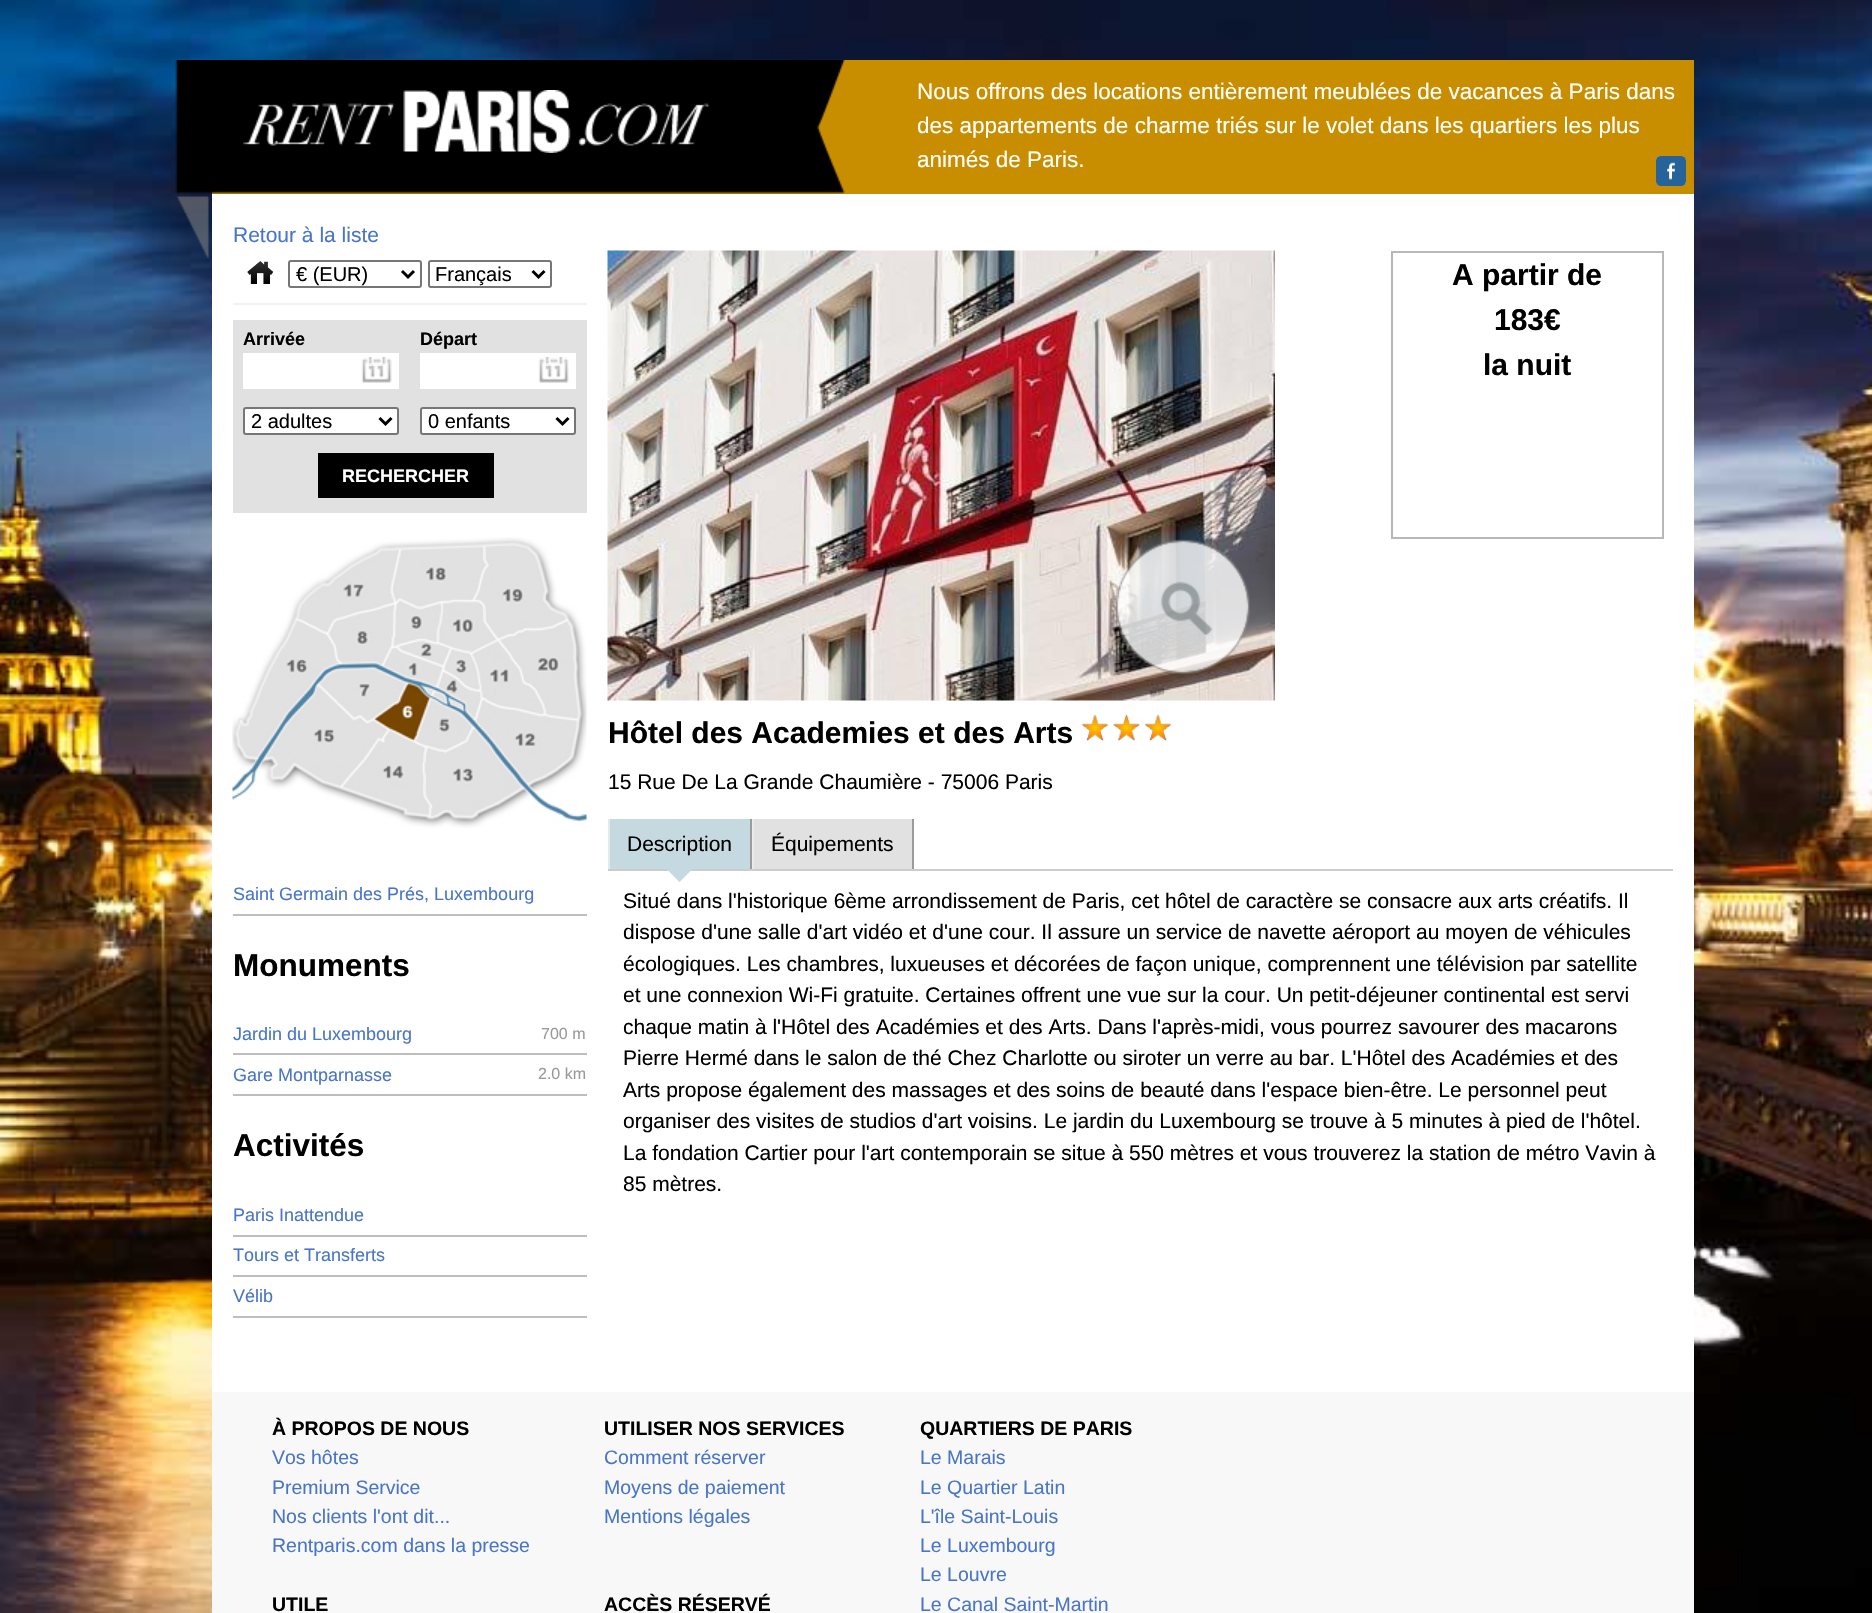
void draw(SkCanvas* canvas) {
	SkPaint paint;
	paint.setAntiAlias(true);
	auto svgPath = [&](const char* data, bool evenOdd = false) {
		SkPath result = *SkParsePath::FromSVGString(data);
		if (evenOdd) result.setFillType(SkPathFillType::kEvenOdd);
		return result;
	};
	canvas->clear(0xffffffff);
	canvas->drawImageRect(SkImages::DeferredFromEncodedData(SkData::MakeFromFileName("img1.png")), SkRect::MakeXYWH(0, 0, 1872, 1613), SkSamplingOptions());
	paint.setColor(0xffc88e00);
	canvas->drawRect(SkRect::MakeXYWH(212, 60, 1482, 134), paint);
	canvas->drawImageRect(SkImages::DeferredFromEncodedData(SkData::MakeFromFileName("img2.png")), SkRect::MakeXYWH(175, 60, 670, 198), SkSamplingOptions());
	canvas->drawImageRect(SkImages::DeferredFromEncodedData(SkData::MakeFromFileName("img3.png")), SkRect::MakeXYWH(243, 90, 467, 63), SkSamplingOptions());
	SkFont f1(fontMgr->matchFamilyStyle("Liberation Sans", SkFontStyle::Normal()), 22.5);
	f1.setSubpixel(true);
	paint.setColor(0xffffffff);
	canvas->drawString("Nous offrons des locations entièrement meublées de vacances à Paris dans", 917, 99, f1, paint);
	canvas->drawString("des appartements de charme triés sur le volet dans les quartiers les plus", 917, 133, f1, paint);
	canvas->drawString("animés de Paris.", 917, 167, f1, paint);
	canvas->drawRoundRect(SkRect::MakeXYWH(1656, 156, 30, 30), 5, 5, paint);
	canvas->drawImageRect(SkImages::DeferredFromEncodedData(SkData::MakeFromFileName("img4.png")), SkRect::MakeXYWH(1656, 156, 30, 30), SkSamplingOptions());
	canvas->drawRect(SkRect::MakeXYWH(212, 194, 1482, 1198), paint);
	SkFont f2(fontMgr->matchFamilyStyle("Liberation Sans", SkFontStyle::Normal()), 21);
	f2.setSubpixel(true);
	paint.setColor(0xff4975c9);
	canvas->drawString("Retour à la liste", 233, 242, f2, paint);
	paint.setColor(0xfff2f2f2);
	canvas->drawRect(SkRect::MakeXYWH(233, 303, 354, 2), paint);
	canvas->drawImageRect(SkImages::DeferredFromEncodedData(SkData::MakeFromFileName("img5.png")), SkRect::MakeXYWH(247, 261, 26, 23), SkSamplingOptions());
	paint.setStroke(true);
	paint.setStrokeWidth(2);
	paint.setColor(0xff767676);
	canvas->drawRoundRect(SkRect::MakeXYWH(289, 261, 132, 26), 2, 2, paint);
	paint.setStrokeWidth(3);
	paint.setColor(0xff000000);
	canvas->drawPath(svgPath("M402 271L408 277L414 271"), paint);
	canvas->save();
	canvas->clipRect(SkRect::MakeXYWH(296, 261, 100, 26));
	SkFont f3(fontMgr->matchFamilyStyle("Liberation Sans", SkFontStyle::Normal()), 20);
	f3.setSubpixel(true);
	paint.setStroke(false);
	canvas->drawString("€ (EUR)", 296, 281, f3, paint);
	canvas->restore();
	paint.setStroke(true);
	paint.setStrokeWidth(2);
	paint.setColor(0xff767676);
	canvas->drawRoundRect(SkRect::MakeXYWH(429, 261, 122, 26), 2, 2, paint);
	paint.setStrokeWidth(3);
	paint.setColor(0xff000000);
	canvas->drawPath(svgPath("M532.5 271L538.5 277L544.5 271"), paint);
	paint.setStroke(false);
	canvas->drawString("Français", 435, 281, f3, paint);
	paint.setColor(0xffe1e1e1);
	canvas->drawRect(SkRect::MakeXYWH(233, 320, 354, 193), paint);
	SkFont f4(fontMgr->matchFamilyStyle("Liberation Sans", SkFontStyle::Bold()), 18);
	f4.setSubpixel(true);
	paint.setColor(0xff000000);
	canvas->drawString("Arrivée", 243, 345, f4, paint);
	paint.setColor(0xffffffff);
	canvas->drawRect(SkRect::MakeXYWH(243, 353, 156, 36), paint);
	canvas->drawImageRect(SkImages::DeferredFromEncodedData(SkData::MakeFromFileName("img6.png")), SkRect::MakeXYWH(361, 357, 31, 26), SkSamplingOptions());
	paint.setColor(0xff000000);
	canvas->drawString("Départ", 420, 345, f4, paint);
	paint.setColor(0xffffffff);
	canvas->drawRect(SkRect::MakeXYWH(420, 353, 156, 36), paint);
	canvas->drawImageRect(SkImages::DeferredFromEncodedData(SkData::MakeFromFileName("img7.png")), SkRect::MakeXYWH(538, 357, 31, 26), SkSamplingOptions());
	canvas->drawRoundRect(SkRect::MakeXYWH(244, 408, 154, 26), 2, 2, paint);
	paint.setStroke(true);
	paint.setStrokeWidth(2);
	paint.setColor(0xff767676);
	canvas->drawRoundRect(SkRect::MakeXYWH(244, 408, 154, 26), 2, 2, paint);
	paint.setStrokeWidth(3);
	paint.setColor(0xff000000);
	canvas->drawPath(svgPath("M379.5 418L385.5 424L391.5 418"), paint);
	paint.setStroke(false);
	canvas->drawString("2 adultes", 251, 428, f3, paint);
	paint.setColor(0xffffffff);
	canvas->drawRoundRect(SkRect::MakeXYWH(421, 408, 154, 26), 2, 2, paint);
	paint.setStroke(true);
	paint.setStrokeWidth(2);
	paint.setColor(0xff767676);
	canvas->drawRoundRect(SkRect::MakeXYWH(421, 408, 154, 26), 2, 2, paint);
	paint.setStrokeWidth(3);
	paint.setColor(0xff000000);
	canvas->drawPath(svgPath("M556.5 418L562.5 424L568.5 418"), paint);
	paint.setStroke(false);
	canvas->drawString("0 enfants", 428, 428, f3, paint);
	canvas->drawRect(SkRect::MakeXYWH(318, 453, 176, 45), paint);
	paint.setColor(0xffffffff);
	canvas->drawString("RECHERCHER", 342, 482, f4, paint);
	canvas->drawImageRect(SkImages::DeferredFromEncodedData(SkData::MakeFromFileName("img8.png")), SkRect::MakeXYWH(232, 537, 355, 291), SkSamplingOptions());
	paint.setColor(0xffbebebe);
	canvas->drawRect(SkRect::MakeXYWH(233, 914, 354, 2), paint);
	SkFont f5(fontMgr->matchFamilyStyle("Liberation Sans", SkFontStyle::Normal()), 18);
	f5.setSubpixel(true);
	paint.setColor(0xff4975c9);
	canvas->drawString("Saint Germain des Prés, Luxembourg", 233, 900, f5, paint);
	SkFont f6(fontMgr->matchFamilyStyle("Liberation Sans", SkFontStyle::Bold()), 31.5);
	f6.setSubpixel(true);
	paint.setColor(0xff000000);
	canvas->drawString("Monuments", 233, 976, f6, paint);
	paint.setColor(0xffbebebe);
	canvas->drawRect(SkRect::MakeXYWH(233, 1053, 354, 2), paint);
	paint.setColor(0xff4975c9);
	canvas->drawString("Jardin du Luxembourg", 233, 1040, f5, paint);
	SkFont f7(fontMgr->matchFamilyStyle("Liberation Sans", SkFontStyle::Normal()), 16);
	f7.setSubpixel(true);
	paint.setColor(0xff999999);
	canvas->drawString("700 m", 541, 1039, f7, paint);
	paint.setColor(0xffbebebe);
	canvas->drawRect(SkRect::MakeXYWH(233, 1094, 354, 2), paint);
	paint.setColor(0xff4975c9);
	canvas->drawString("Gare Montparnasse", 233, 1081, f5, paint);
	paint.setColor(0xff999999);
	canvas->drawString("2.0 km", 538, 1079, f7, paint);
	paint.setColor(0xff000000);
	canvas->drawString("Activités", 233, 1156, f6, paint);
	paint.setColor(0xffbebebe);
	canvas->drawRect(SkRect::MakeXYWH(233, 1235, 354, 2), paint);
	paint.setColor(0xff4975c9);
	canvas->drawString("Paris Inattendue", 233, 1221, f5, paint);
	paint.setColor(0xffbebebe);
	canvas->drawRect(SkRect::MakeXYWH(233, 1275, 354, 2), paint);
	paint.setColor(0xff4975c9);
	canvas->drawString("Tours et Transferts", 233, 1261, f5, paint);
	paint.setColor(0xffbebebe);
	canvas->drawRect(SkRect::MakeXYWH(233, 1316, 354, 2), paint);
	paint.setColor(0xff4975c9);
	canvas->drawString("Vélib", 233, 1302, f5, paint);
	canvas->drawImageRect(SkImages::DeferredFromEncodedData(SkData::MakeFromFileName("img9.png")), SkRect::MakeXYWH(607, 250, 668, 451), SkSamplingOptions());
	canvas->drawImageRect(SkImages::DeferredFromEncodedData(SkData::MakeFromFileName("img10.png")), SkRect::MakeXYWH(1115, 539, 135, 135), SkSamplingOptions());
	paint.setStroke(true);
	paint.setStrokeWidth(2);
	paint.setColor(0xffb8b8b8);
	canvas->drawRect(SkRect::MakeXYWH(1392, 252, 271, 286), paint);
	SkFont f8(fontMgr->matchFamilyStyle("Liberation Sans", SkFontStyle::Bold()), 30);
	f8.setSubpixel(true);
	paint.setStroke(false);
	paint.setColor(0xff000000);
	canvas->drawString("A partir de", 1452, 285, f8, paint);
	canvas->drawString("183€", 1494, 330, f8, paint);
	canvas->drawString("la nuit", 1483, 375, f8, paint);
	canvas->drawString("Hôtel des Academies et des Arts", 608, 743, f8, paint);
	canvas->drawImageRect(SkImages::DeferredFromEncodedData(SkData::MakeFromFileName("img11.png")), SkRect::MakeXYWH(1081, 714, 28, 27), SkSamplingOptions());
	canvas->drawImageRect(SkImages::DeferredFromEncodedData(SkData::MakeFromFileName("img12.png")), SkRect::MakeXYWH(1113, 714, 27, 27), SkSamplingOptions());
	canvas->drawImageRect(SkImages::DeferredFromEncodedData(SkData::MakeFromFileName("img11.png")), SkRect::MakeXYWH(1144, 714, 28, 27), SkSamplingOptions());
	canvas->drawString("15 Rue De La Grande Chaumière - 75006 Paris", 608, 789, f2, paint);
	paint.setColor(0xffc5dae0);
	canvas->drawRect(SkRect::MakeXYWH(610, 819, 140, 50), paint);
	paint.setColor(0xff9b9b9b);
	canvas->drawRect(SkRect::MakeXYWH(750, 819, 2, 50), paint);
	paint.setColor(0xffe1ebee);
	canvas->drawRect(SkRect::MakeXYWH(608, 819, 2, 50), paint);
	paint.setColor(0xff000000);
	canvas->drawString("Description", 627, 851, f2, paint);
	paint.setColor(0xffcccccc);
	canvas->drawRect(SkRect::MakeXYWH(608, 869, 1065, 2), paint);
	paint.setColor(0xffc5dae0);
	canvas->drawPath(svgPath("M666 868.5H693L679.5 882Z"), paint);
	paint.setColor(0xffe1e1e1);
	canvas->drawRect(SkRect::MakeXYWH(754, 819, 158, 50), paint);
	paint.setColor(0xff9b9b9b);
	canvas->drawRect(SkRect::MakeXYWH(912, 819, 2, 50), paint);
	paint.setColor(0xffeaeaea);
	canvas->drawRect(SkRect::MakeXYWH(752, 819, 2, 50), paint);
	paint.setColor(0xff000000);
	canvas->drawString("Équipements", 771, 851, f2, paint);
	canvas->drawString("Situé dans l'historique 6ème arrondissement de Paris, cet hôtel de caractère se consacre aux arts créatifs. Il", 623, 908, f2, paint);
	canvas->drawString("dispose d'une salle d'art vidéo et d'une cour. Il assure un service de navette aéroport au moyen de véhicules", 623, 939, f2, paint);
	canvas->drawString("écologiques. Les chambres, luxueuses et décorées de façon unique, comprennent une télévision par satellite", 623, 971, f2, paint);
	canvas->drawString("et une connexion Wi-Fi gratuite. Certaines offrent une vue sur la cour. Un petit-déjeuner continental est servi", 623, 1002, f2, paint);
	canvas->drawString("chaque matin à l'Hôtel des Académies et des Arts. Dans l'après-midi, vous pourrez savourer des macarons", 623, 1034, f2, paint);
	canvas->drawString("Pierre Hermé dans le salon de thé Chez Charlotte ou siroter un verre au bar. L'Hôtel des Académies et des", 623, 1065, f2, paint);
	canvas->drawString("Arts propose également des massages et des soins de beauté dans l'espace bien-être. Le personnel peut", 623, 1097, f2, paint);
	canvas->drawString("organiser des visites de studios d'art voisins. Le jardin du Luxembourg se trouve à 5 minutes à pied de l'hôtel.", 623, 1128, f2, paint);
	canvas->drawString("La fondation Cartier pour l'art contemporain se situe à 550 mètres et vous trouverez la station de métro Vavin à", 623, 1160, f2, paint);
	canvas->drawString("85 mètres.", 623, 1191, f2, paint);
	paint.setColor(0xfff8f8f8);
	canvas->drawRect(SkRect::MakeXYWH(212, 1392, 1482, 221), paint);
	SkFont f9(fontMgr->matchFamilyStyle("Liberation Sans", SkFontStyle::Bold()), 19.5);
	f9.setSubpixel(true);
	paint.setColor(0xff000000);
	canvas->drawString("À PROPOS DE NOUS", 272, 1435, f9, paint);
	SkFont f10(fontMgr->matchFamilyStyle("Liberation Sans", SkFontStyle::Normal()), 19.5);
	f10.setSubpixel(true);
	paint.setColor(0xff4975c9);
	canvas->drawString("Vos hôtes", 272, 1464, f10, paint);
	canvas->drawString("Premium Service", 272, 1494, f10, paint);
	canvas->drawString("Nos clients l'ont dit...", 272, 1523, f10, paint);
	canvas->drawString("Rentparis.com dans la presse", 272, 1552, f10, paint);
	paint.setColor(0xff000000);
	canvas->drawString("UTILE", 272, 1611, f9, paint);
	canvas->drawString("UTILISER NOS SERVICES", 604, 1435, f9, paint);
	paint.setColor(0xff4975c9);
	canvas->drawString("Comment réserver", 604, 1464, f10, paint);
	canvas->drawString("Moyens de paiement", 604, 1494, f10, paint);
	canvas->drawString("Mentions légales", 604, 1523, f10, paint);
	paint.setColor(0xff000000);
	canvas->drawString("ACCÈS RÉSERVÉ", 604, 1611, f9, paint);
	canvas->drawString("QUARTIERS DE PARIS", 920, 1435, f9, paint);
	paint.setColor(0xff4975c9);
	canvas->drawString("Le Marais", 920, 1464, f10, paint);
	canvas->drawString("Le Quartier Latin", 920, 1494, f10, paint);
	canvas->drawString("L'île Saint-Louis", 920, 1523, f10, paint);
	canvas->drawString("Le Luxembourg", 920, 1552, f10, paint);
	canvas->drawString("Le Louvre", 920, 1581, f10, paint);
	canvas->drawString("Le Canal Saint-Martin", 920, 1611, f10, paint);
}
